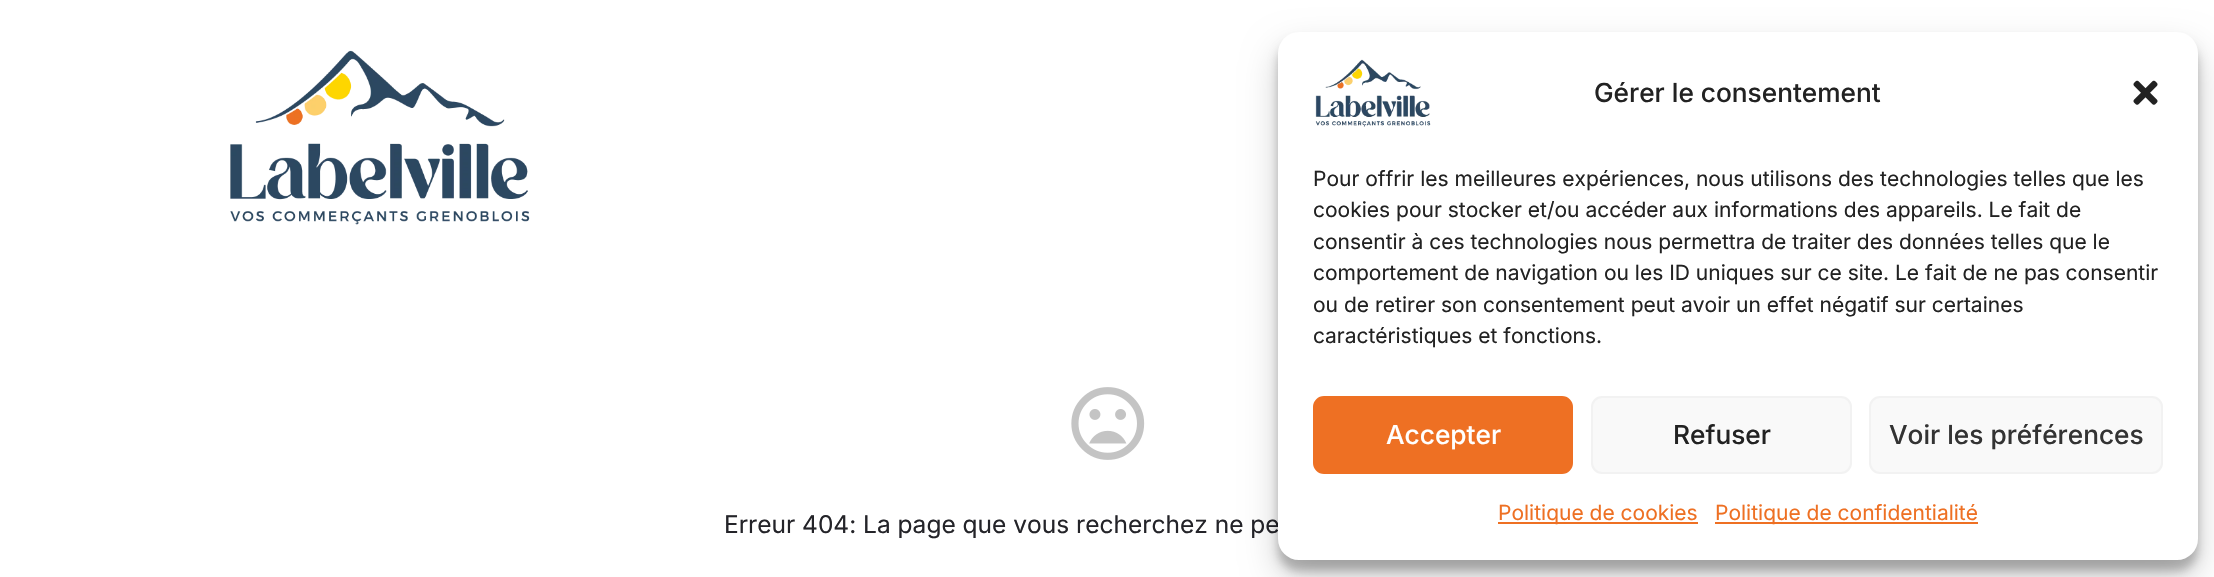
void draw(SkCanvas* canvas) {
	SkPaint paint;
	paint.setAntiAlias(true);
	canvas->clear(0xffffffff);
	canvas->drawImageRect(SkImages::DeferredFromEncodedData(SkData::MakeFromFileName("img1.png")), SkRect::MakeXYWH(230, 50, 300, 175), SkSamplingOptions());
	canvas->drawImageRect(SkImages::DeferredFromEncodedData(SkData::MakeFromFileName("img2.png")), SkRect::MakeXYWH(1071, 387, 74, 73), SkSamplingOptions());
	SkFont f1(fontMgr->matchFamilyStyle("Inter", SkFontStyle::Normal()), 24.5);
	f1.setSubpixel(true);
	paint.setColor(0xff242429);
	canvas->drawString("Erreur 404: La page que vous recherchez ne pe", 724, 533, f1, paint);
	paint.setColor(0x3b000000);
	paint.setMaskFilter(SkMaskFilter::MakeBlur(kNormal_SkBlurStyle, 5));
	canvas->drawRoundRect(SkRect::MakeXYWH(1278, 42, 920, 529), 21, 21, paint);
	paint.setMaskFilter(nullptr);
	paint.setColor(0x30000000);
	paint.setMaskFilter(SkMaskFilter::MakeBlur(kNormal_SkBlurStyle, 17.5));
	canvas->drawRoundRect(SkRect::MakeXYWH(1278, 49, 920, 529), 21, 21, paint);
	paint.setMaskFilter(nullptr);
	paint.setColor(0xffffffff);
	canvas->drawRoundRect(SkRect::MakeXYWH(1278, 32, 920, 528), 21, 21, paint);
	canvas->drawImageRect(SkImages::DeferredFromEncodedData(SkData::MakeFromFileName("img3.png")), SkRect::MakeXYWH(1315, 59, 116, 68), SkSamplingOptions());
	SkFont f2(fontMgr->matchFamilyStyle("Inter", SkFontStyle(500, SkFontStyle::kNormal_Width, SkFontStyle::kUpright_Slant)), 26.25);
	f2.setSubpixel(true);
	paint.setColor(0xff222222);
	canvas->drawString("Gérer le consentement", 1594, 102, f2, paint);
	canvas->drawImageRect(SkImages::DeferredFromEncodedData(SkData::MakeFromFileName("img4.png")), SkRect::MakeXYWH(2133, 80, 25, 25), SkSamplingOptions());
	SkFont f3(fontMgr->matchFamilyStyle("Inter", SkFontStyle::Normal()), 21);
	f3.setSubpixel(true);
	canvas->drawString("Pour offrir les meilleures expériences, nous utilisons des technologies telles que les", 1313, 186, f3, paint);
	canvas->drawString("cookies pour stocker et/ou accéder aux informations des appareils. Le fait de", 1313, 217, f3, paint);
	canvas->drawString("consentir à ces technologies nous permettra de traiter des données telles que le", 1313, 249, f3, paint);
	canvas->drawString("comportement de navigation ou les ID uniques sur ce site. Le fait de ne pas consentir", 1313, 280, f3, paint);
	canvas->drawString("ou de retirer son consentement peut avoir un effet négatif sur certaines", 1313, 312, f3, paint);
	canvas->drawString("caractéristiques et fonctions.", 1313, 343, f3, paint);
	paint.setColor(0xffee7023);
	canvas->drawRoundRect(SkRect::MakeXYWH(1314, 397, 258, 76), 10, 10, paint);
	paint.setStroke(true);
	paint.setStrokeWidth(2);
	canvas->drawRoundRect(SkRect::MakeXYWH(1314, 397, 258, 76), 10, 10, paint);
	paint.setStroke(false);
	paint.setColor(0xffffffff);
	canvas->drawString("Accepter", 1386, 444, f2, paint);
	paint.setColor(0xfff9f9f9);
	canvas->drawRoundRect(SkRect::MakeXYWH(1592, 397, 259, 76), 10, 10, paint);
	paint.setStroke(true);
	paint.setColor(0xfff2f2f2);
	canvas->drawRoundRect(SkRect::MakeXYWH(1592, 397, 259, 76), 10, 10, paint);
	paint.setStroke(false);
	paint.setColor(0xff222222);
	canvas->drawString("Refuser", 1673, 444, f2, paint);
	paint.setColor(0xfff9f9f9);
	canvas->drawRoundRect(SkRect::MakeXYWH(1870, 397, 292, 76), 10, 10, paint);
	paint.setStroke(true);
	paint.setColor(0xfff2f2f2);
	canvas->drawRoundRect(SkRect::MakeXYWH(1870, 397, 292, 76), 10, 10, paint);
	paint.setStroke(false);
	paint.setColor(0xff333333);
	canvas->drawString("Voir les préférences", 1889, 444, f2, paint);
	paint.setColor(0xffee7023);
	canvas->drawRect(SkRect::MakeXYWH(1498, 522, 200, 2), paint);
	canvas->drawString("Politique de cookies", 1498, 520, f3, paint);
	canvas->drawRect(SkRect::MakeXYWH(1715, 522, 263, 2), paint);
	canvas->drawString("Politique de confidentialité", 1715, 520, f3, paint);
}
